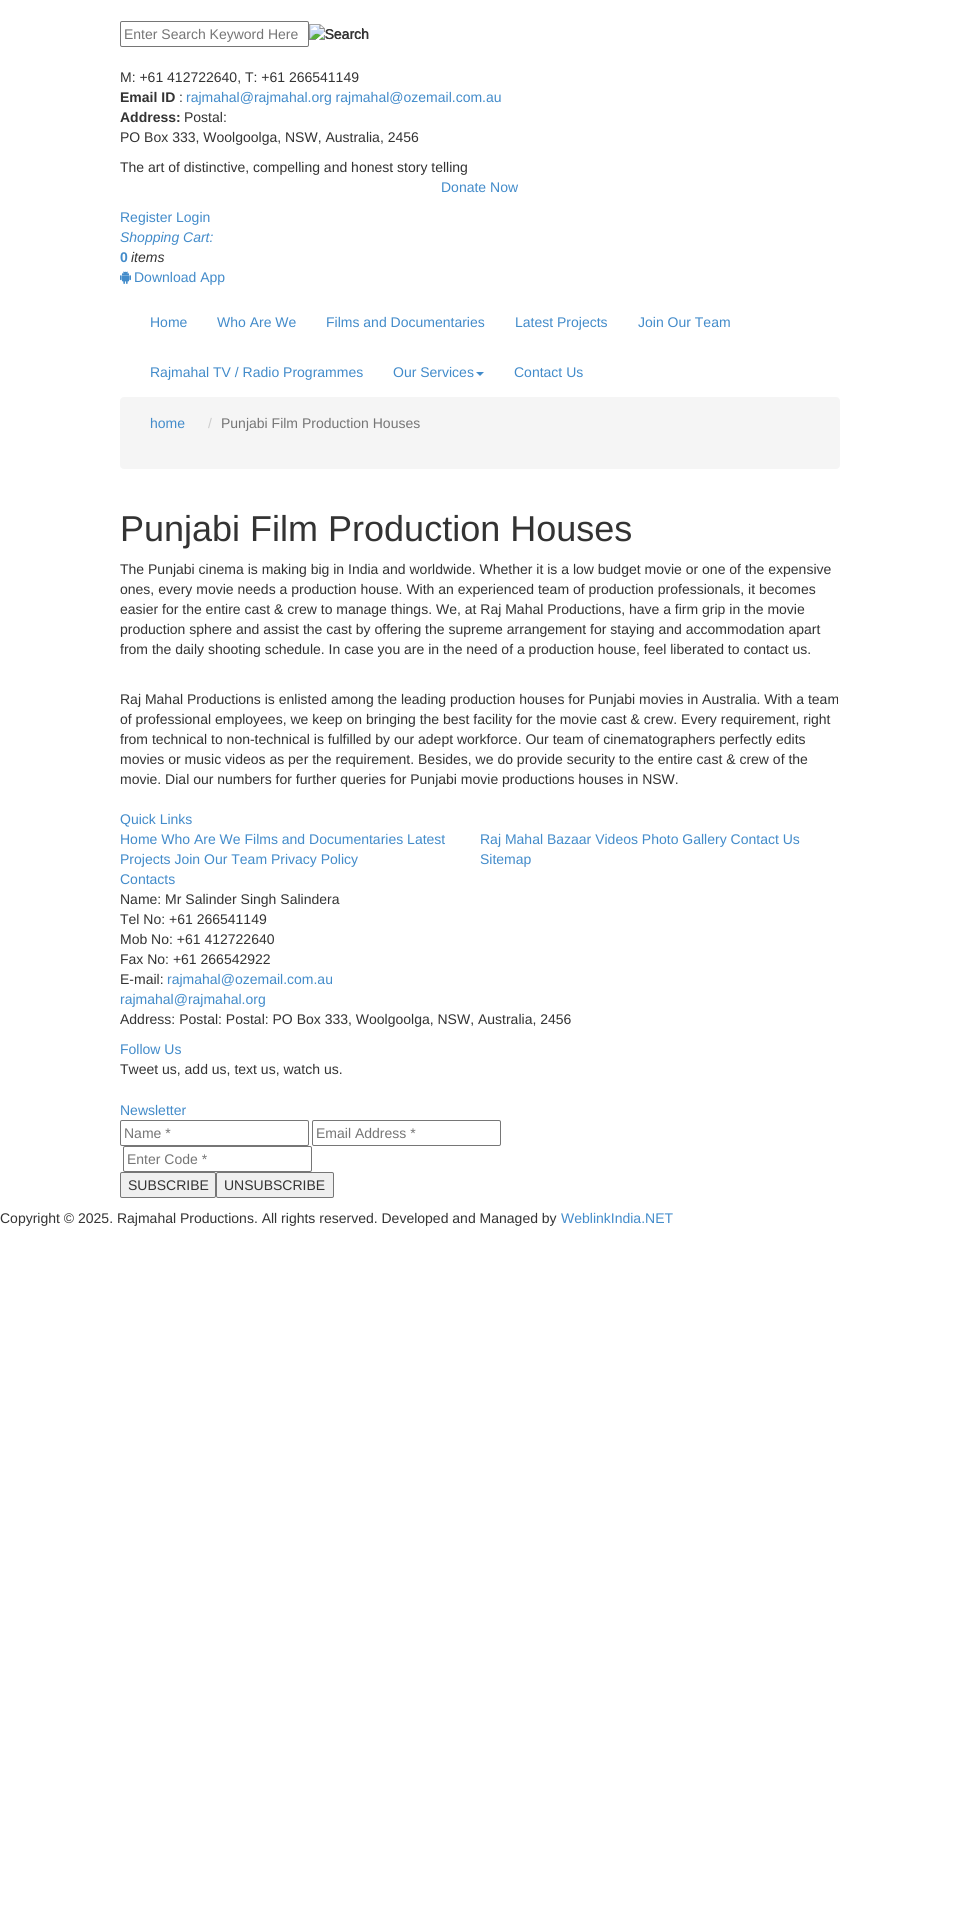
#include <cairo/cairo.h>
#include <math.h>
#include <stddef.h>

typedef struct { double x, y; const char *s; } line_t;
static cairo_t *cr;

static void rgb(unsigned color)
{
	cairo_set_source_rgb(cr, (color >> 16) / 255.0, (color >> 8 & 255) / 255.0, (color & 255) / 255.0);
}

static void rrect(double x, double y, double w, double h, double r)
{
	cairo_new_sub_path(cr);
	cairo_arc(cr, x + w - r, y + h - r, r, 0, M_PI / 2);
	cairo_arc(cr, x + r, y + h - r, r, M_PI / 2, M_PI);
	cairo_arc(cr, x + r, y + r, r, M_PI, 1.5 * M_PI);
	cairo_arc(cr, x + w - r, y + r, r, 1.5 * M_PI, 2 * M_PI);
	cairo_close_path(cr);
}

static void image(const char *path, double x, double y, double w, double h)
{
	cairo_surface_t *image = cairo_image_surface_create_from_png(path);
	cairo_save(cr);
	cairo_set_source_surface(cr, image, x, y);
	cairo_rectangle(cr, x, y, w, h);
	cairo_fill(cr);
	cairo_restore(cr);
	cairo_surface_destroy(image);
}

int main(void) {
	cairo_surface_t *surface = cairo_image_surface_create(CAIRO_FORMAT_RGB24, 959, 1927);
	cr = cairo_create(surface);
	cairo_font_options_t *options = cairo_font_options_create();
	cairo_font_options_set_hint_metrics(options, CAIRO_HINT_METRICS_OFF);
	cairo_font_options_set_hint_style(options, CAIRO_HINT_STYLE_NONE);
	cairo_set_font_options(cr, options);
	cairo_set_miter_limit(cr, 4);
	rgb(0xffffff);
	cairo_paint(cr);
	rrect(120.5, 21.5, 188, 25, 1.5);
	rgb(0x767676);
	cairo_set_line_width(cr, 1);
	cairo_stroke(cr);
	image("img/1.png", 309, 24, 59, 16);
	image("img/2.png", 120, 271, 11, 13);
	rgb(0x428bca);
	cairo_new_path(cr);
	cairo_move_to(cr, 476, 372);
	cairo_line_to(cr, 484, 372);
	cairo_line_to(cr, 480, 376);
	cairo_close_path(cr);
	cairo_fill(cr);
	rgb(0xf5f5f5);
	rrect(120, 397, 720, 72, 4);
	cairo_fill(cr);
	rrect(120.5, 1120.5, 188, 25, 1.5);
	rgb(0x767676);
	cairo_stroke(cr);
	rrect(312.5, 1120.5, 188, 25, 1.5);
	cairo_stroke(cr);
	rrect(123.5, 1146.5, 188, 25, 1.5);
	cairo_stroke(cr);
	rgb(0xefefef);
	rrect(120.5, 1172.5, 95, 25, 1.5);
	cairo_fill_preserve(cr);
	rgb(0x767676);
	cairo_stroke(cr);
	rgb(0xefefef);
	rrect(216.5, 1172.5, 117, 25, 1.5);
	cairo_fill_preserve(cr);
	rgb(0x767676);
	cairo_stroke(cr);
	cairo_select_font_face(cr, "Liberation Sans", CAIRO_FONT_SLANT_NORMAL, CAIRO_FONT_WEIGHT_NORMAL);
	cairo_set_font_size(cr, 14);
	rgb(0x757575);
	cairo_move_to(cr, 124, 39);
	cairo_show_text(cr, "Enter Search Keyword Here");
	rgb(0x333333);
	cairo_move_to(cr, 325, 39);
	cairo_show_text(cr, "Search");
	cairo_move_to(cr, 120, 82);
	cairo_show_text(cr, "M: +61 412722640, T: +61 266541149");
	cairo_select_font_face(cr, "Liberation Sans", CAIRO_FONT_SLANT_NORMAL, CAIRO_FONT_WEIGHT_BOLD);
	cairo_move_to(cr, 120, 102);
	cairo_show_text(cr, "Email ID");
	cairo_select_font_face(cr, "Liberation Sans", CAIRO_FONT_SLANT_NORMAL, CAIRO_FONT_WEIGHT_NORMAL);
	cairo_move_to(cr, 179, 102);
	cairo_show_text(cr, ":");
	rgb(0x428bca);
	cairo_move_to(cr, 186, 102);
	cairo_show_text(cr, "rajmahal@rajmahal.org rajmahal@ozemail.com.au");
	cairo_select_font_face(cr, "Liberation Sans", CAIRO_FONT_SLANT_NORMAL, CAIRO_FONT_WEIGHT_BOLD);
	rgb(0x333333);
	cairo_move_to(cr, 120, 122);
	cairo_show_text(cr, "Address:");
	cairo_select_font_face(cr, "Liberation Sans", CAIRO_FONT_SLANT_NORMAL, CAIRO_FONT_WEIGHT_NORMAL);
	{
		static const line_t items[] = {
			{184, 122, "Postal:"},
			{120, 142, "PO Box 333, Woolgoolga, NSW, Australia, 2456"},
			{120, 172, "The art of distinctive, compelling and honest story telling"},
		};
		for (size_t i = 0; i < sizeof items / sizeof *items; i++) {
			cairo_move_to(cr, items[i].x, items[i].y);
			cairo_show_text(cr, items[i].s);
		}
	}
	rgb(0x428bca);
	cairo_move_to(cr, 441, 192);
	cairo_show_text(cr, "Donate Now");
	cairo_move_to(cr, 120, 222);
	cairo_show_text(cr, "Register Login");
	cairo_select_font_face(cr, "Liberation Sans", CAIRO_FONT_SLANT_ITALIC, CAIRO_FONT_WEIGHT_NORMAL);
	cairo_move_to(cr, 120, 242);
	cairo_show_text(cr, "Shopping Cart:");
	cairo_select_font_face(cr, "Liberation Sans", CAIRO_FONT_SLANT_NORMAL, CAIRO_FONT_WEIGHT_BOLD);
	cairo_move_to(cr, 120, 262);
	cairo_show_text(cr, "0");
	cairo_select_font_face(cr, "Liberation Sans", CAIRO_FONT_SLANT_ITALIC, CAIRO_FONT_WEIGHT_NORMAL);
	rgb(0x333333);
	cairo_move_to(cr, 131, 262);
	cairo_show_text(cr, "items");
	cairo_select_font_face(cr, "Liberation Sans", CAIRO_FONT_SLANT_NORMAL, CAIRO_FONT_WEIGHT_NORMAL);
	rgb(0x428bca);
	{
		static const line_t items[] = {
			{134, 282, "Download App"},
			{150, 327, "Home"},
			{217, 327, "Who Are We"},
			{326, 327, "Films and Documentaries"},
			{515, 327, "Latest Projects"},
			{638, 327, "Join Our Team"},
			{150, 377, "Rajmahal TV / Radio Programmes"},
			{393, 377, "Our Services"},
			{514, 377, "Contact Us"},
			{150, 428, "home"},
		};
		for (size_t i = 0; i < sizeof items / sizeof *items; i++) {
			cairo_move_to(cr, items[i].x, items[i].y);
			cairo_show_text(cr, items[i].s);
		}
	}
	rgb(0xcccccc);
	cairo_move_to(cr, 208, 428);
	cairo_show_text(cr, "/");
	rgb(0x757575);
	cairo_move_to(cr, 221, 428);
	cairo_show_text(cr, "Punjabi Film Production Houses");
	cairo_set_font_size(cr, 36);
	rgb(0x333333);
	cairo_move_to(cr, 120, 541);
	cairo_show_text(cr, "Punjabi Film Production Houses");
	cairo_set_font_size(cr, 14);
	{
		static const line_t items[] = {
			{120, 574, "The Punjabi cinema is making big in India and worldwide. Whether it is a low budget movie or one of the expensive"},
			{120, 594, "ones, every movie needs a production house. With an experienced team of production professionals, it becomes"},
			{120, 614, "easier for the entire cast & crew to manage things. We, at Raj Mahal Productions, have a firm grip in the movie"},
			{120, 634, "production sphere and assist the cast by offering the supreme arrangement for staying and accommodation apart"},
			{120, 654, "from the daily shooting schedule. In case you are in the need of a production house, feel liberated to contact us."},
			{120, 704, "Raj Mahal Productions is enlisted among the leading production houses for Punjabi movies in Australia. With a team"},
			{120, 724, "of professional employees, we keep on bringing the best facility for the movie cast & crew. Every requirement, right"},
			{120, 744, "from technical to non-technical is fulfilled by our adept workforce. Our team of cinematographers perfectly edits"},
			{120, 764, "movies or music videos as per the requirement. Besides, we do provide security to the entire cast & crew of the"},
			{120, 784, "movie. Dial our numbers for further queries for Punjabi movie productions houses in NSW."},
		};
		for (size_t i = 0; i < sizeof items / sizeof *items; i++) {
			cairo_move_to(cr, items[i].x, items[i].y);
			cairo_show_text(cr, items[i].s);
		}
	}
	rgb(0x428bca);
	{
		static const line_t items[] = {
			{120, 824, "Quick Links"},
			{120, 844, "Home Who Are We Films and Documentaries Latest"},
			{120, 864, "Projects Join Our Team Privacy Policy"},
			{480, 844, "Raj Mahal Bazaar Videos Photo Gallery Contact Us"},
			{480, 864, "Sitemap"},
			{120, 884, "Contacts"},
		};
		for (size_t i = 0; i < sizeof items / sizeof *items; i++) {
			cairo_move_to(cr, items[i].x, items[i].y);
			cairo_show_text(cr, items[i].s);
		}
	}
	rgb(0x333333);
	{
		static const line_t items[] = {
			{120, 904, "Name: Mr Salinder Singh Salindera"},
			{120, 924, "Tel No: +61 266541149"},
			{120, 944, "Mob No: +61 412722640"},
			{120, 964, "Fax No: +61 266542922"},
			{120, 984, "E-mail:"},
		};
		for (size_t i = 0; i < sizeof items / sizeof *items; i++) {
			cairo_move_to(cr, items[i].x, items[i].y);
			cairo_show_text(cr, items[i].s);
		}
	}
	rgb(0x428bca);
	cairo_move_to(cr, 167, 984);
	cairo_show_text(cr, "rajmahal@ozemail.com.au");
	cairo_move_to(cr, 120, 1004);
	cairo_show_text(cr, "rajmahal@rajmahal.org");
	rgb(0x333333);
	cairo_move_to(cr, 120, 1024);
	cairo_show_text(cr, "Address: Postal: Postal: PO Box 333, Woolgoolga, NSW, Australia, 2456");
	rgb(0x428bca);
	cairo_move_to(cr, 120, 1054);
	cairo_show_text(cr, "Follow Us");
	rgb(0x333333);
	cairo_move_to(cr, 120, 1074);
	cairo_show_text(cr, "Tweet us, add us, text us, watch us.");
	rgb(0x428bca);
	cairo_move_to(cr, 120, 1115);
	cairo_show_text(cr, "Newsletter");
	rgb(0x757575);
	{
		static const line_t items[] = {
			{124, 1138, "Name *"},
			{316, 1138, "Email Address *"},
			{127, 1164, "Enter Code *"},
		};
		for (size_t i = 0; i < sizeof items / sizeof *items; i++) {
			cairo_move_to(cr, items[i].x, items[i].y);
			cairo_show_text(cr, items[i].s);
		}
	}
	rgb(0x333333);
	{
		static const line_t items[] = {
			{128, 1190, "SUBSCRIBE"},
			{224, 1190, "UNSUBSCRIBE"},
			{0, 1223, "Copyright © 2025. Rajmahal Productions. All rights reserved. Developed and Managed by"},
		};
		for (size_t i = 0; i < sizeof items / sizeof *items; i++) {
			cairo_move_to(cr, items[i].x, items[i].y);
			cairo_show_text(cr, items[i].s);
		}
	}
	rgb(0x428bca);
	cairo_move_to(cr, 561, 1223);
	cairo_show_text(cr, "WeblinkIndia.NET");
	cairo_surface_write_to_png(surface, "page.png");
	cairo_font_options_destroy(options);
	cairo_destroy(cr);
	cairo_surface_destroy(surface);
	return 0;
}
